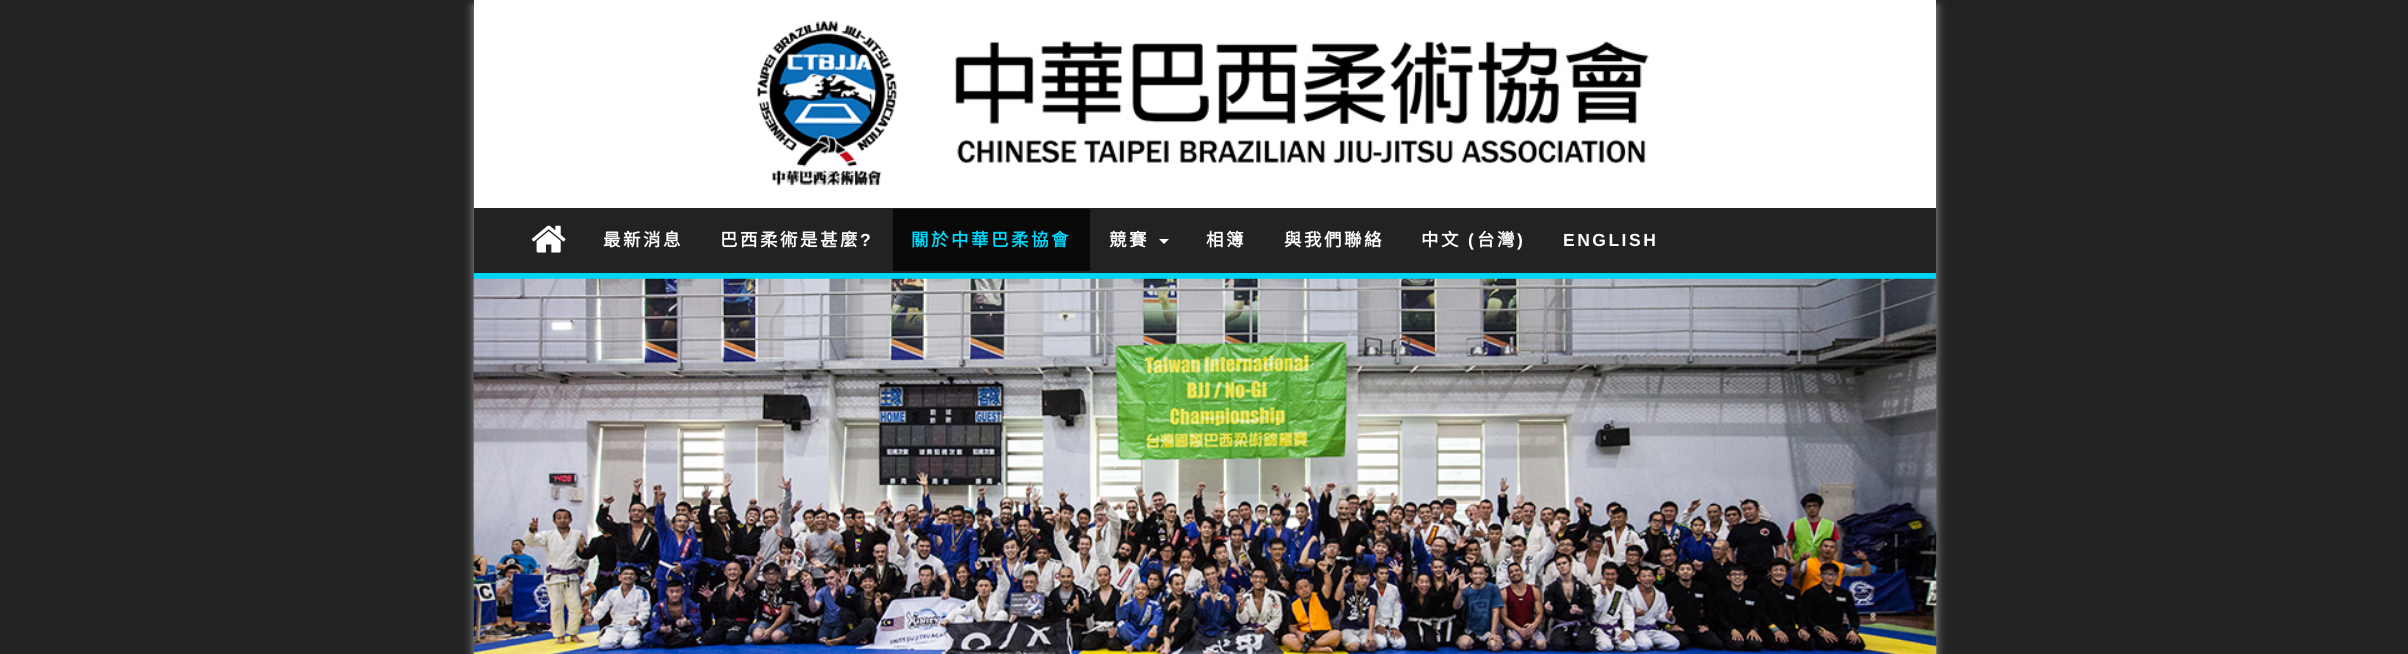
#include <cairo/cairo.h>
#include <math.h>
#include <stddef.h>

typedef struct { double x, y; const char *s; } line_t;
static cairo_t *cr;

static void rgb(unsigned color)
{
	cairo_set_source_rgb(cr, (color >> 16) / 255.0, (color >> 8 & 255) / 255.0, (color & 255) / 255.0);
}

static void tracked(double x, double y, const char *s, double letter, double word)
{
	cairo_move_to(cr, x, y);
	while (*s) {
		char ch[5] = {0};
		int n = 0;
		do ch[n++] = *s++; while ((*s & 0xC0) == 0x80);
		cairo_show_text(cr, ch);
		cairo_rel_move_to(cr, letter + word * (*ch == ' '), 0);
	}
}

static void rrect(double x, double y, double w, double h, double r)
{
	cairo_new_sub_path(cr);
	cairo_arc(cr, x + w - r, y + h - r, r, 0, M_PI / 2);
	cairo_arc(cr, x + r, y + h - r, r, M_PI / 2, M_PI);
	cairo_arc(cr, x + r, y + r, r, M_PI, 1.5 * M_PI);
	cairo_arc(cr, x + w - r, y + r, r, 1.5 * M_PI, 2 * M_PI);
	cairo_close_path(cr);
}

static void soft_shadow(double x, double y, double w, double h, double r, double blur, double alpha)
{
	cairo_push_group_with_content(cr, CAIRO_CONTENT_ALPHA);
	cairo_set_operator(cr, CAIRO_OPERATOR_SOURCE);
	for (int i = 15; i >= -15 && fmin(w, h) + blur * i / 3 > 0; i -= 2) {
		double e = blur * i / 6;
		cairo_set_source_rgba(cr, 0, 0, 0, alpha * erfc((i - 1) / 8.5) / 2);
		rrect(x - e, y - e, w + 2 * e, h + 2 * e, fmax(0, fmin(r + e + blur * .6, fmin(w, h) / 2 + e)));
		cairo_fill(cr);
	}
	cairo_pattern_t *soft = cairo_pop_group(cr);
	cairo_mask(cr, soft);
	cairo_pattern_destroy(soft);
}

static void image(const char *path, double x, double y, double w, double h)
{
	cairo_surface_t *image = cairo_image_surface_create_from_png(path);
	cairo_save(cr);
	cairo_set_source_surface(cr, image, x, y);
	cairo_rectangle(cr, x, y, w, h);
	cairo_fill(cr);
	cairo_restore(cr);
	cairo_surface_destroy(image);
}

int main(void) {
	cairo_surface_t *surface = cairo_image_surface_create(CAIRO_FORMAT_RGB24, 2408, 654);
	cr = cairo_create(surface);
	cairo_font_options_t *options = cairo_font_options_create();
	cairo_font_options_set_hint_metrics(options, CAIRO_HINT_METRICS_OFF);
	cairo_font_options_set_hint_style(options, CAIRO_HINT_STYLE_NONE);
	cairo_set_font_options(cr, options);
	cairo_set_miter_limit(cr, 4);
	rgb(0x222222);
	cairo_paint(cr);
	cairo_save(cr);
	cairo_set_fill_rule(cr, CAIRO_FILL_RULE_EVEN_ODD);
	cairo_new_path(cr);
	cairo_move_to(cr, 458, 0);
	cairo_line_to(cr, 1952, 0);
	cairo_line_to(cr, 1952, 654);
	cairo_line_to(cr, 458, 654);
	cairo_close_path(cr);
	cairo_move_to(cr, 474, 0);
	cairo_line_to(cr, 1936, 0);
	cairo_line_to(cr, 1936, 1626);
	cairo_line_to(cr, 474, 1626);
	cairo_close_path(cr);
	cairo_clip(cr);
	rgb(0xa1a1a1);
	soft_shadow(474, 6, 1462, 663, 0, 5, 1);
	cairo_restore(cr);
	rgb(0xffffff);
	cairo_rectangle(cr, 474, 0, 1462, 208);
	cairo_fill(cr);
	image("img/1.png", 757, 21, 892, 165);
	rgb(0x00d6f7);
	cairo_rectangle(cr, 474, 273, 1462, 6);
	cairo_fill(cr);
	image("img/2.png", 531, 225, 35, 28);
	rgb(0x080808);
	cairo_rectangle(cr, 893, 209, 197, 62);
	cairo_fill(cr);
	rgb(0xffffff);
	cairo_new_path(cr);
	cairo_move_to(cr, 1159, 239);
	cairo_line_to(cr, 1169, 239);
	cairo_line_to(cr, 1164, 244);
	cairo_close_path(cr);
	cairo_fill(cr);
	image("img/3.png", 473, 278, 1464, 376);
	cairo_select_font_face(cr, "Noto Sans CJK TC", CAIRO_FONT_SLANT_NORMAL, CAIRO_FONT_WEIGHT_BOLD);
	cairo_set_font_size(cr, 17.5);
	tracked(603, 246, "最新消息", 2.5, 0);
	tracked(720, 246, "巴西柔術是甚麼", 2.5, 0);
	cairo_select_font_face(cr, "Liberation Sans", CAIRO_FONT_SLANT_NORMAL, CAIRO_FONT_WEIGHT_BOLD);
	tracked(860, 246, "?", 2.5, 0);
	cairo_select_font_face(cr, "Noto Sans CJK TC", CAIRO_FONT_SLANT_NORMAL, CAIRO_FONT_WEIGHT_BOLD);
	rgb(0x00d6f7);
	tracked(911, 246, "關於中華巴柔協會", 2.5, 0);
	rgb(0xffffff);
	{
		static const line_t items[] = {
			{1109, 246, "競賽"},
			{1206, 246, "相簿"},
			{1284, 246, "與我們聯絡"},
			{1421, 246, "中文"},
		};
		for (size_t i = 0; i < sizeof items / sizeof *items; i++) {
			tracked(items[i].x, items[i].y, items[i].s, 2.5, 0);
		}
	}
	cairo_select_font_face(cr, "Liberation Sans", CAIRO_FONT_SLANT_NORMAL, CAIRO_FONT_WEIGHT_BOLD);
	tracked(1468, 246, "(", 2.5, 0);
	cairo_select_font_face(cr, "Noto Sans CJK TC", CAIRO_FONT_SLANT_NORMAL, CAIRO_FONT_WEIGHT_BOLD);
	tracked(1477, 246, "台灣", 2.5, 0);
	cairo_select_font_face(cr, "Liberation Sans", CAIRO_FONT_SLANT_NORMAL, CAIRO_FONT_WEIGHT_BOLD);
	tracked(1517, 246, ")", 2.5, 0);
	tracked(1563, 246, "ENGLISH", 2.5, 0);
	cairo_surface_write_to_png(surface, "page.png");
	cairo_font_options_destroy(options);
	cairo_destroy(cr);
	cairo_surface_destroy(surface);
	return 0;
}
